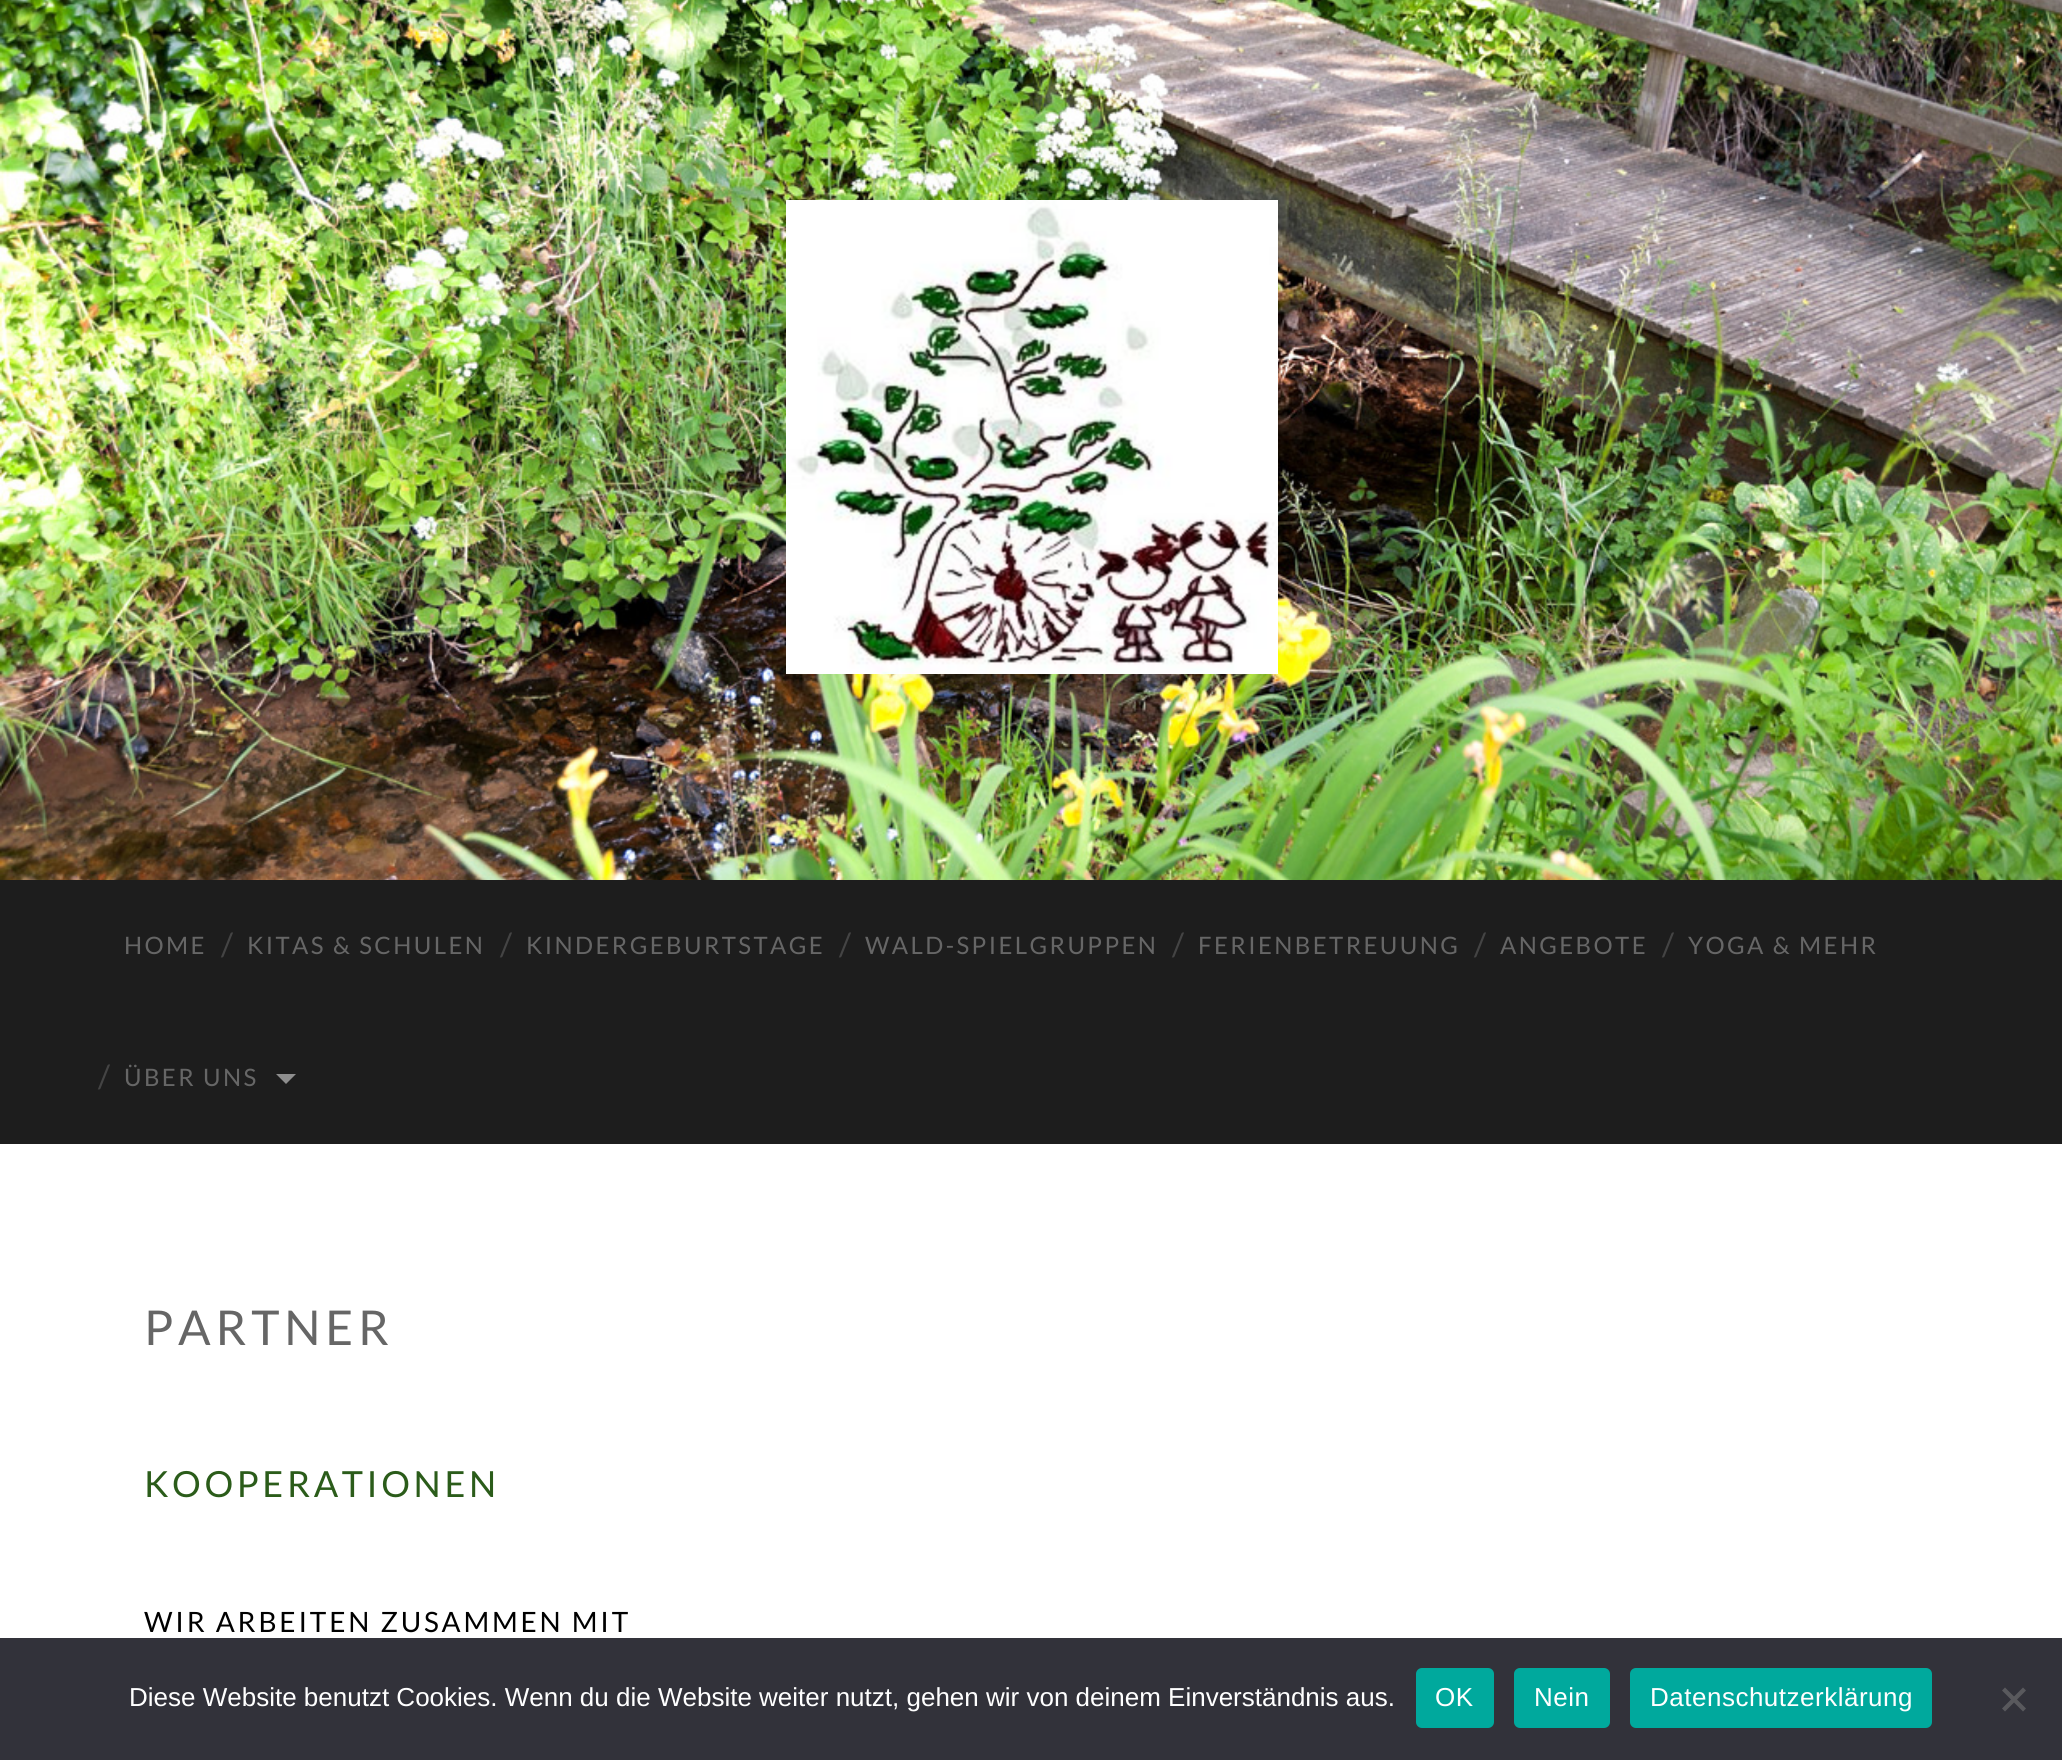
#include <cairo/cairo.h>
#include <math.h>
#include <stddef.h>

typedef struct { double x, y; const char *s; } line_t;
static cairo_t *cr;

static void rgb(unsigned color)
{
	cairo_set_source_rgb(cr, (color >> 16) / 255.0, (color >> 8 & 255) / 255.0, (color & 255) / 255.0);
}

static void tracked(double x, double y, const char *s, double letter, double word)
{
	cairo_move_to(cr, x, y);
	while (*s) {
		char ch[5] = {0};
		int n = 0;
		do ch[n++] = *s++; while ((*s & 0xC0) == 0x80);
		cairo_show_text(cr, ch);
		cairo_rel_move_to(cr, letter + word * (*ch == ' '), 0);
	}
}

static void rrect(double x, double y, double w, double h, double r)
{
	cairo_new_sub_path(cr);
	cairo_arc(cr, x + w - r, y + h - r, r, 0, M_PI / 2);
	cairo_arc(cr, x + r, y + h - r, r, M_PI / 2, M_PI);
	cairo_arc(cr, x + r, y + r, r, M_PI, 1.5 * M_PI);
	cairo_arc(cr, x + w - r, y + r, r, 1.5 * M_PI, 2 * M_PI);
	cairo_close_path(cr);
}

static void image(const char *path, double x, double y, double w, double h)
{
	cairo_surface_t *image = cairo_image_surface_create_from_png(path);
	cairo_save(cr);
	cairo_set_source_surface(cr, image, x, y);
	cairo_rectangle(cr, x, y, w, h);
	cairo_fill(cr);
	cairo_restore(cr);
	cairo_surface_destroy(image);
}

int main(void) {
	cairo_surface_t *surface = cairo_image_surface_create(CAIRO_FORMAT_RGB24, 2062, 1760);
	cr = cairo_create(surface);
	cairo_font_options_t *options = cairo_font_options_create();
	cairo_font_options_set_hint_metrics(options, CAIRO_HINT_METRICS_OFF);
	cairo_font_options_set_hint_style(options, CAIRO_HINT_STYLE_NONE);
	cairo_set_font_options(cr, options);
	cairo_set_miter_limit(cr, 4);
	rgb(0xffffff);
	cairo_paint(cr);
	image("img/1.png", 0, 0, 2062, 880);
	image("img/2.png", 786, 200, 492, 474);
	rgb(0x1d1d1d);
	cairo_rectangle(cr, 0, 880, 2062, 264);
	cairo_fill(cr);
	rgb(0x8e8e8e);
	cairo_new_path(cr);
	cairo_move_to(cr, 276, 1074);
	cairo_line_to(cr, 296, 1074);
	cairo_line_to(cr, 286, 1084);
	cairo_close_path(cr);
	cairo_fill(cr);
	rgb(0x32323a);
	cairo_rectangle(cr, 0, 1638, 2062, 122);
	cairo_fill(cr);
	rgb(0x00a99d);
	rrect(1416, 1668, 78, 60, 6);
	cairo_fill(cr);
	rrect(1514, 1668, 96, 60, 6);
	cairo_fill(cr);
	rrect(1630, 1668, 302, 60, 6);
	cairo_fill(cr);
	rgb(0x59595d);
	cairo_new_path(cr);
	cairo_move_to(cr, 2023, 1687.5);
	cairo_line_to(cr, 2026, 1690.5);
	cairo_line_to(cr, 2005, 1711.5);
	cairo_line_to(cr, 2002, 1708.5);
	cairo_close_path(cr);
	cairo_fill(cr);
	cairo_new_path(cr);
	cairo_move_to(cr, 2002, 1690.5);
	cairo_line_to(cr, 2005, 1687.5);
	cairo_line_to(cr, 2026, 1708.5);
	cairo_line_to(cr, 2023, 1711.5);
	cairo_close_path(cr);
	cairo_fill(cr);
	cairo_select_font_face(cr, "Lato", CAIRO_FONT_SLANT_NORMAL, CAIRO_FONT_WEIGHT_NORMAL);
	cairo_set_font_size(cr, 24);
	rgb(0x666666);
	tracked(124, 954, "HOME", 2.4, 0);
	cairo_set_font_size(cr, 32);
	rgb(0x444444);
	cairo_move_to(cr, 221, 956);
	cairo_show_text(cr, "/");
	cairo_set_font_size(cr, 24);
	rgb(0x666666);
	tracked(247, 954, "KITAS & SCHULEN", 2.4, 0);
	cairo_set_font_size(cr, 32);
	rgb(0x444444);
	cairo_move_to(cr, 500, 956);
	cairo_show_text(cr, "/");
	cairo_set_font_size(cr, 24);
	rgb(0x666666);
	tracked(526, 954, "KINDERGEBURTSTAGE", 2.4, 0);
	cairo_set_font_size(cr, 32);
	rgb(0x444444);
	cairo_move_to(cr, 839, 956);
	cairo_show_text(cr, "/");
	cairo_set_font_size(cr, 24);
	rgb(0x666666);
	tracked(865, 954, "WALD-SPIELGRUPPEN", 2.4, 0);
	cairo_set_font_size(cr, 32);
	rgb(0x444444);
	cairo_move_to(cr, 1172, 956);
	cairo_show_text(cr, "/");
	cairo_set_font_size(cr, 24);
	rgb(0x666666);
	tracked(1198, 954, "FERIENBETREUUNG", 2.4, 0);
	cairo_set_font_size(cr, 32);
	rgb(0x444444);
	cairo_move_to(cr, 1474, 956);
	cairo_show_text(cr, "/");
	cairo_set_font_size(cr, 24);
	rgb(0x666666);
	tracked(1500, 954, "ANGEBOTE", 2.4, 0);
	cairo_set_font_size(cr, 32);
	rgb(0x444444);
	cairo_move_to(cr, 1662, 956);
	cairo_show_text(cr, "/");
	cairo_set_font_size(cr, 24);
	rgb(0x666666);
	tracked(1688, 954, "YOGA & MEHR", 2.4, 0);
	cairo_set_font_size(cr, 32);
	rgb(0x444444);
	cairo_move_to(cr, 98, 1088);
	cairo_show_text(cr, "/");
	cairo_set_font_size(cr, 24);
	rgb(0x666666);
	tracked(124, 1086, "ÜBER UNS", 2.4, 0);
	cairo_set_font_size(cr, 48);
	tracked(144, 1345, "PARTNER", 4.75, 0);
	cairo_set_font_size(cr, 36);
	rgb(0x2b5c1a);
	tracked(144, 1497, "KOOPERATIONEN", 3.6, 0);
	cairo_set_font_size(cr, 28);
	rgb(0x000000);
	tracked(144, 1632, "WIR ARBEITEN ZUSAMMEN MIT", 2.8, 0);
	cairo_select_font_face(cr, "Liberation Sans", CAIRO_FONT_SLANT_NORMAL, CAIRO_FONT_WEIGHT_NORMAL);
	cairo_set_font_size(cr, 26);
	rgb(0xffffff);
	cairo_move_to(cr, 129, 1706);
	cairo_show_text(cr, "Diese Website benutzt Cookies. Wenn du die Website weiter nutzt, gehen wir von deinem Einverständnis aus.");
	{
		static const line_t items[] = {
			{1435, 1706, "OK"},
			{1534, 1706, "Nein"},
			{1650, 1706, "Datenschutzerklärung"},
		};
		for (size_t i = 0; i < sizeof items / sizeof *items; i++) {
			tracked(items[i].x, items[i].y, items[i].s, 0.5, 0);
		}
	}
	cairo_surface_write_to_png(surface, "page.png");
	cairo_font_options_destroy(options);
	cairo_destroy(cr);
	cairo_surface_destroy(surface);
	return 0;
}
